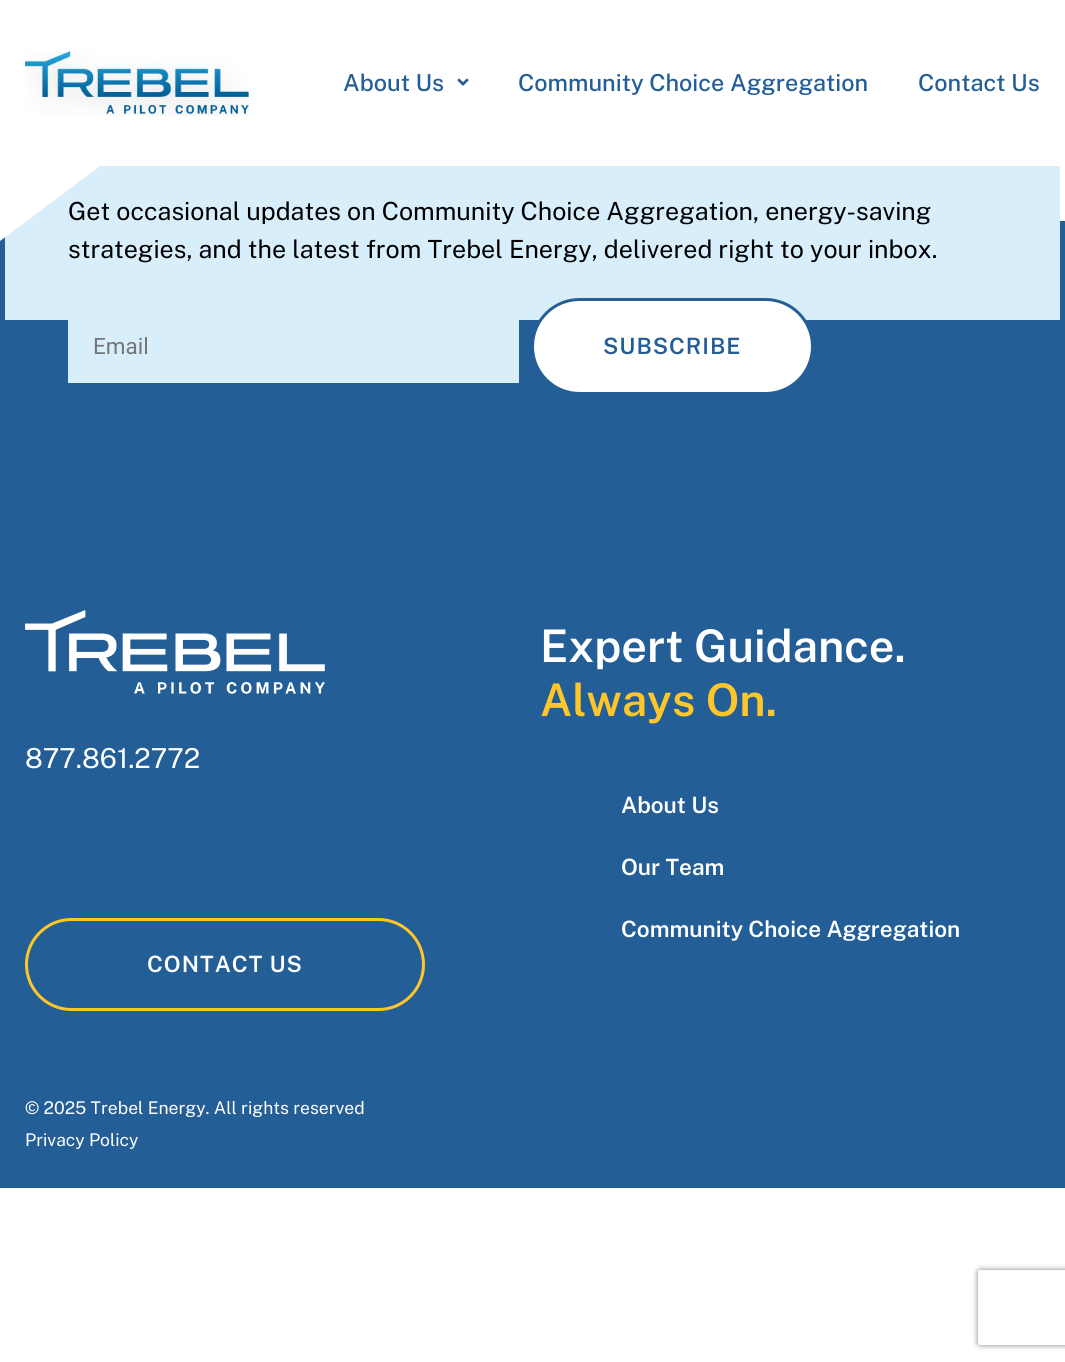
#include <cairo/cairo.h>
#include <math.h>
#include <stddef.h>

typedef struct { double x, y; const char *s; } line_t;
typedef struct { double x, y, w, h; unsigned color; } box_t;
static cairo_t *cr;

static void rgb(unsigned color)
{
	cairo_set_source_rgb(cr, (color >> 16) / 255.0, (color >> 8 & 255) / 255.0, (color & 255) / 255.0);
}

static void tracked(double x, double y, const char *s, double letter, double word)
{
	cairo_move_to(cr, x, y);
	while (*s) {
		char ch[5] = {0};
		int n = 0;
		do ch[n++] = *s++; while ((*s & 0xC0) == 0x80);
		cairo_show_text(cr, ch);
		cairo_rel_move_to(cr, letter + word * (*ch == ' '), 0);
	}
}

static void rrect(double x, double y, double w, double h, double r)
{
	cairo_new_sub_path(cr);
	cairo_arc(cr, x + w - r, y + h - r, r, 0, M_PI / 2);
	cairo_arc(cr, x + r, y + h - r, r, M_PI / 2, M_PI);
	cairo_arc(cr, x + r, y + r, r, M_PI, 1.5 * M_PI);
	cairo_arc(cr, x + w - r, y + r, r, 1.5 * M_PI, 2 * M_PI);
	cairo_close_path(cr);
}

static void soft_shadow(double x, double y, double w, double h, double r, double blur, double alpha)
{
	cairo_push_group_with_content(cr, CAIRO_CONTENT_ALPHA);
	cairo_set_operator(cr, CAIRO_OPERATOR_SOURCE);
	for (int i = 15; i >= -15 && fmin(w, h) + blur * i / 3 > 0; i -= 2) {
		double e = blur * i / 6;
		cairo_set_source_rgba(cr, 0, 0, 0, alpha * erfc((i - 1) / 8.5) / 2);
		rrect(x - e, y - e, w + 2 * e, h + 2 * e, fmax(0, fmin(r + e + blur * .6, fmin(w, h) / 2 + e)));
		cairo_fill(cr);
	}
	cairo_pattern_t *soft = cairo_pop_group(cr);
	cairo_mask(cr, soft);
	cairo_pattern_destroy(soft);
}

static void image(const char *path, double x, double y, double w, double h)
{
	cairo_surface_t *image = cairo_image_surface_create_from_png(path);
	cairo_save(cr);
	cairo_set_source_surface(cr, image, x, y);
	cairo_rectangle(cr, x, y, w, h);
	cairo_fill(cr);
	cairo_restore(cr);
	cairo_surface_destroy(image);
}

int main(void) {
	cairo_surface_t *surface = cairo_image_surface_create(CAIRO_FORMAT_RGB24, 1065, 1362);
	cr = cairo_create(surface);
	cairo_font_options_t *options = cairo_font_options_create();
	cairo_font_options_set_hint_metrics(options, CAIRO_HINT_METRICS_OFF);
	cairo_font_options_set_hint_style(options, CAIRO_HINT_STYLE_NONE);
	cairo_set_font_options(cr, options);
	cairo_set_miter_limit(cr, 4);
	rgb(0xffffff);
	cairo_paint(cr);
	image("img/1.png", 25, 51, 224, 65);
	image("img/2.png", 457, 78, 12, 8);
	{
		static const box_t items[] = {
			{0, 221, 1065, 967, 0x245e96},
			{5, 166, 1055, 154, 0xd8effb},
			{68, 320, 451, 63, 0xd8effb},
		};
		for (size_t i = 0; i < sizeof items / sizeof *items; i++) {
			rgb(items[i].color);
			cairo_rectangle(cr, items[i].x, items[i].y, items[i].w, items[i].h);
			cairo_fill(cr);
		}
	}
	rgb(0xffffff);
	rrect(532.5, 299.5, 280, 94, 47);
	cairo_fill_preserve(cr);
	rgb(0x245e96);
	cairo_set_line_width(cr, 3);
	cairo_stroke(cr);
	image("img/3.png", 25, 610, 300, 84);
	rrect(26.5, 919.5, 397, 90, 45);
	rgb(0xffc629);
	cairo_stroke(cr);
	cairo_save(cr);
	cairo_set_fill_rule(cr, CAIRO_FILL_RULE_EVEN_ODD);
	cairo_new_path(cr);
	cairo_move_to(cr, 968, 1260);
	cairo_line_to(cr, 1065, 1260);
	cairo_line_to(cr, 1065, 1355);
	cairo_line_to(cr, 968, 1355);
	cairo_close_path(cr);
	cairo_move_to(cr, 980.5, 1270);
	cairo_line_to(cr, 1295.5, 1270);
	cairo_curve_to(cr, 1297, 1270, 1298, 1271, 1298, 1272.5);
	cairo_line_to(cr, 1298, 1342.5);
	cairo_curve_to(cr, 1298, 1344, 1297, 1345, 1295.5, 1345);
	cairo_line_to(cr, 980.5, 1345);
	cairo_curve_to(cr, 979, 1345, 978, 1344, 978, 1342.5);
	cairo_line_to(cr, 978, 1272.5);
	cairo_curve_to(cr, 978, 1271, 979, 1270, 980.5, 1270);
	cairo_close_path(cr);
	cairo_clip(cr);
	rgb(0x808080);
	soft_shadow(978, 1270, 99, 75, 2.5, 3, 1);
	cairo_restore(cr);
	cairo_select_font_face(cr, "Public Sans Medium", CAIRO_FONT_SLANT_NORMAL, CAIRO_FONT_WEIGHT_NORMAL);
	cairo_set_font_size(cr, 23.4);
	rgb(0x245e96);
	{
		static const line_t items[] = {
			{343, 91, "About Us"},
			{518, 91, "Community Choice Aggregation"},
			{918, 91, "Contact Us"},
		};
		for (size_t i = 0; i < sizeof items / sizeof *items; i++) {
			cairo_move_to(cr, items[i].x, items[i].y);
			cairo_show_text(cr, items[i].s);
		}
	}
	cairo_select_font_face(cr, "Public Sans", CAIRO_FONT_SLANT_NORMAL, CAIRO_FONT_WEIGHT_NORMAL);
	cairo_set_font_size(cr, 25);
	rgb(0x000000);
	cairo_move_to(cr, 68, 220);
	cairo_show_text(cr, "Get occasional updates on Community Choice Aggregation, energy-saving");
	cairo_move_to(cr, 68, 258);
	cairo_show_text(cr, "strategies, and the latest from Trebel Energy, delivered right to your inbox.");
	rgb(0xffffff);
	cairo_new_path(cr);
	cairo_move_to(cr, 0, 241);
	cairo_line_to(cr, 0, 166);
	cairo_line_to(cr, 100, 166);
	cairo_close_path(cr);
	cairo_fill(cr);
	cairo_select_font_face(cr, "Roboto", CAIRO_FONT_SLANT_NORMAL, CAIRO_FONT_WEIGHT_NORMAL);
	cairo_set_font_size(cr, 22.5);
	rgb(0x757575);
	cairo_move_to(cr, 93, 354);
	cairo_show_text(cr, "Email");
	cairo_select_font_face(cr, "Public Sans SemiBold", CAIRO_FONT_SLANT_NORMAL, CAIRO_FONT_WEIGHT_NORMAL);
	rgb(0x245e96);
	tracked(603, 354, "SUBSCRIBE", 1, 0);
	cairo_select_font_face(cr, "Public Sans", CAIRO_FONT_SLANT_NORMAL, CAIRO_FONT_WEIGHT_NORMAL);
	cairo_set_font_size(cr, 27.5);
	rgb(0xffffff);
	cairo_move_to(cr, 25, 768);
	cairo_show_text(cr, "877.861.2772");
	cairo_select_font_face(cr, "Public Sans SemiBold", CAIRO_FONT_SLANT_NORMAL, CAIRO_FONT_WEIGHT_NORMAL);
	cairo_set_font_size(cr, 22.5);
	tracked(147, 972, "CONTACT US", 1, 0);
	cairo_set_font_size(cr, 45);
	cairo_move_to(cr, 540, 662);
	cairo_show_text(cr, "Expert Guidance.");
	rgb(0xffc629);
	cairo_move_to(cr, 540, 716);
	cairo_show_text(cr, "Always On.");
	cairo_set_font_size(cr, 22.5);
	rgb(0xffffff);
	{
		static const line_t items[] = {
			{621, 813, "About Us"},
			{621, 875, "Our Team"},
			{621, 937, "Community Choice Aggregation"},
		};
		for (size_t i = 0; i < sizeof items / sizeof *items; i++) {
			cairo_move_to(cr, items[i].x, items[i].y);
			cairo_show_text(cr, items[i].s);
		}
	}
	cairo_select_font_face(cr, "Public Sans", CAIRO_FONT_SLANT_NORMAL, CAIRO_FONT_WEIGHT_NORMAL);
	cairo_set_font_size(cr, 17.5);
	cairo_move_to(cr, 25, 1114);
	cairo_show_text(cr, "© 2025 Trebel Energy. All rights reserved");
	cairo_move_to(cr, 25, 1146);
	cairo_show_text(cr, "Privacy Policy");
	cairo_surface_write_to_png(surface, "page.png");
	cairo_font_options_destroy(options);
	cairo_destroy(cr);
	cairo_surface_destroy(surface);
	return 0;
}
